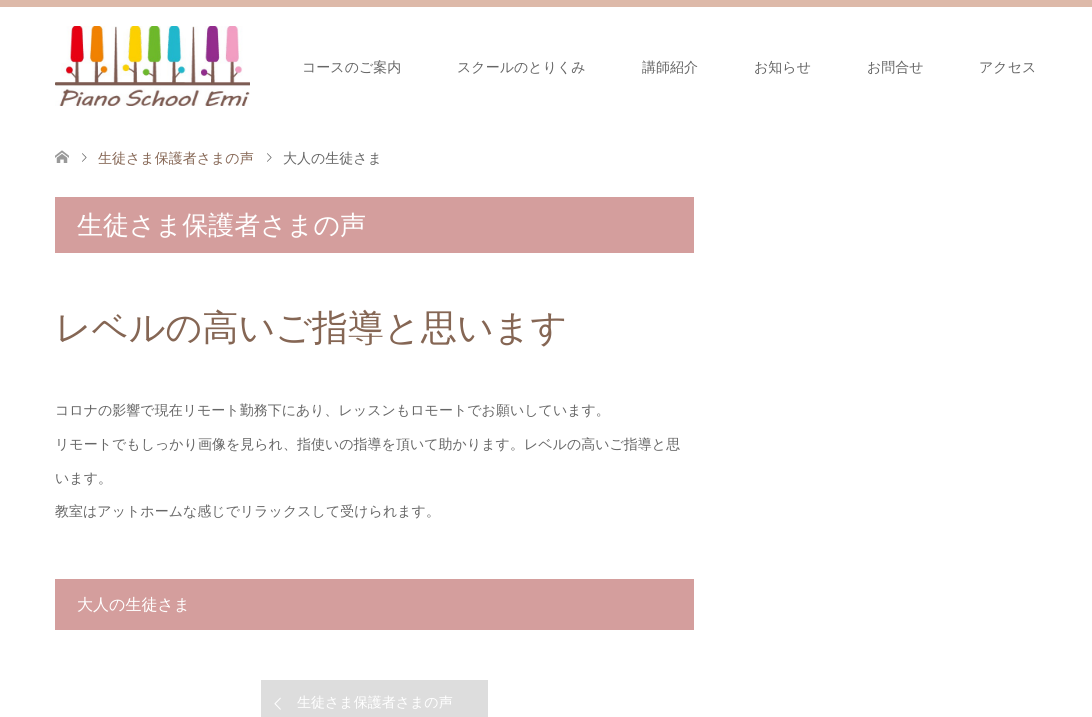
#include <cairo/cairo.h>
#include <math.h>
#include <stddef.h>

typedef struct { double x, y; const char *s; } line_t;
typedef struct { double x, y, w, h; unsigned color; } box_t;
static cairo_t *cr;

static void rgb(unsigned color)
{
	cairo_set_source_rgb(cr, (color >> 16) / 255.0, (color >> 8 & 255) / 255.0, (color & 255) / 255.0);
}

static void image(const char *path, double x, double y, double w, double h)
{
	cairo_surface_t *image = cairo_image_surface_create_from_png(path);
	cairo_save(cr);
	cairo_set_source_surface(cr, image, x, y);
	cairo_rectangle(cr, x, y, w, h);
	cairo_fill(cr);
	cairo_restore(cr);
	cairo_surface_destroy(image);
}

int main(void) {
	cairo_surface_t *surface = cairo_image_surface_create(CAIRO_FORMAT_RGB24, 1092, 717);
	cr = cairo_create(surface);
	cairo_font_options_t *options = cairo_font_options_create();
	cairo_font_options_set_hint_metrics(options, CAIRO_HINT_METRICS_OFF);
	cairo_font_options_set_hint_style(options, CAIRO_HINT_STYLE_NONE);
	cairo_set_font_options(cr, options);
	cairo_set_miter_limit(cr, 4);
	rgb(0xffffff);
	cairo_paint(cr);
	rgb(0xddb9a9);
	cairo_rectangle(cr, 0, 0, 1092, 7);
	cairo_fill(cr);
	image("img/1.png", 55, 26, 195, 80);
	image("img/2.png", 55, 150, 14, 13);
	image("img/3.png", 82, 153, 5, 9);
	image("img/3.png", 267, 153, 5, 9);
	{
		static const box_t items[] = {
			{55, 197, 639, 56, 0xd49e9d},
			{55, 579, 639, 51, 0xd49e9d},
			{261, 680, 227, 37, 0xdddddd},
		};
		for (size_t i = 0; i < sizeof items / sizeof *items; i++) {
			rgb(items[i].color);
			cairo_rectangle(cr, items[i].x, items[i].y, items[i].w, items[i].h);
			cairo_fill(cr);
		}
	}
	image("img/4.png", 274, 697, 7, 13);
	cairo_select_font_face(cr, "WenQuanYi Zen Hei Medium", CAIRO_FONT_SLANT_NORMAL, CAIRO_FONT_WEIGHT_NORMAL);
	cairo_set_font_size(cr, 14);
	rgb(0x666666);
	{
		static const line_t items[] = {
			{302, 72, "コースのご案内"},
			{457, 72, "スクールのとりくみ"},
			{642, 72, "講師紹介"},
			{754, 72, "お知らせ"},
			{867, 72, "お問合せ"},
			{979, 72, "アクセス"},
		};
		for (size_t i = 0; i < sizeof items / sizeof *items; i++) {
			cairo_move_to(cr, items[i].x, items[i].y);
			cairo_show_text(cr, items[i].s);
		}
	}
	rgb(0x856654);
	cairo_move_to(cr, 98, 163);
	cairo_show_text(cr, "生徒さま保護者さまの声");
	rgb(0x666666);
	cairo_move_to(cr, 283, 163);
	cairo_show_text(cr, "大人の生徒さま");
	cairo_set_font_size(cr, 26);
	rgb(0xffffff);
	cairo_move_to(cr, 77, 234);
	cairo_show_text(cr, "生徒さま保護者さまの声");
	cairo_set_font_size(cr, 36);
	rgb(0x856654);
	cairo_move_to(cr, 55, 340);
	cairo_show_text(cr, "レベルの高いご指導と思います");
	cairo_set_font_size(cr, 14);
	rgb(0x666666);
	{
		static const line_t items[] = {
			{55, 415, "コロナの影響で現在リモート勤務下にあり、レッスンもロモートでお願いしています。"},
			{55, 449, "リモートでもしっかり画像を見られ、指使いの指導を頂いて助かります。レベルの高いご指導と思"},
			{55, 483, "います。"},
			{55, 516, "教室はアットホームな感じでリラックスして受けられます。"},
		};
		for (size_t i = 0; i < sizeof items / sizeof *items; i++) {
			cairo_move_to(cr, items[i].x, items[i].y);
			cairo_show_text(cr, items[i].s);
		}
	}
	cairo_set_font_size(cr, 16);
	rgb(0xffffff);
	cairo_move_to(cr, 77, 610);
	cairo_show_text(cr, "大人の生徒さま");
	cairo_set_font_size(cr, 14);
	cairo_move_to(cr, 297, 707);
	cairo_show_text(cr, "生徒さま保護者さまの声");
	cairo_surface_write_to_png(surface, "page.png");
	cairo_font_options_destroy(options);
	cairo_destroy(cr);
	cairo_surface_destroy(surface);
	return 0;
}
